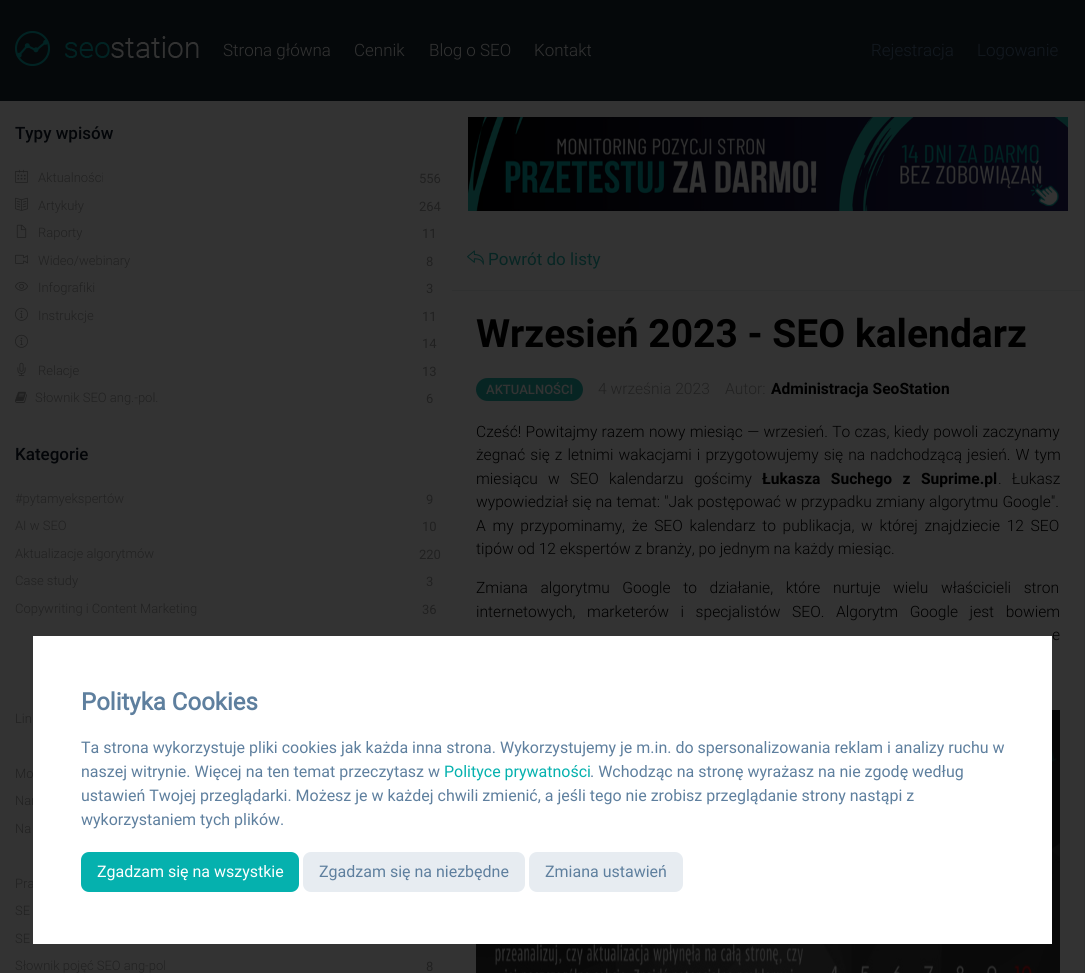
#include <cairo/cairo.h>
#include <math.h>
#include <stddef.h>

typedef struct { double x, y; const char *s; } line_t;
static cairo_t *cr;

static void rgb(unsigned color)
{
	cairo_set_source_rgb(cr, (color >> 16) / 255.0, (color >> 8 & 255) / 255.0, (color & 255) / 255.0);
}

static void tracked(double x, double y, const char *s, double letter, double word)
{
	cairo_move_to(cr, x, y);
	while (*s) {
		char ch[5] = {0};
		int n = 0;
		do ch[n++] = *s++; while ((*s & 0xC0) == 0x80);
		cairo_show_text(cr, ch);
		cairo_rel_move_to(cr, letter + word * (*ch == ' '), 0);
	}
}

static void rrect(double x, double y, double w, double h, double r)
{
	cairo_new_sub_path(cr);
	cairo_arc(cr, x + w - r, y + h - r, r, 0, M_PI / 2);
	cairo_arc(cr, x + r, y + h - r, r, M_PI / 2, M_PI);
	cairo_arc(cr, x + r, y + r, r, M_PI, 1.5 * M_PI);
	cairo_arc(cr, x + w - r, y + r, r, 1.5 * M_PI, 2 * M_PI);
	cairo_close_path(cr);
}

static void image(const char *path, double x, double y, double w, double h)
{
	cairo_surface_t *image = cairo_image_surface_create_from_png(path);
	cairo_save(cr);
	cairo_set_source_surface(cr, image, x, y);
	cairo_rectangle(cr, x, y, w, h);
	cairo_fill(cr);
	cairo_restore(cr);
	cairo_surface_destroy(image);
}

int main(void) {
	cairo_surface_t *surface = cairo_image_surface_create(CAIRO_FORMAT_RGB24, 1085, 973);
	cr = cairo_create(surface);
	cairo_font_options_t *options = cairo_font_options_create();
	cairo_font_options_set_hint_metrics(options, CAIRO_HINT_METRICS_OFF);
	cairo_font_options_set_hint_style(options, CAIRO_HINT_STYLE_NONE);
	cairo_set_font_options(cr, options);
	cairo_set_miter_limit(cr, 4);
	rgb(0x333333);
	cairo_paint(cr);
	rgb(0x05080a);
	cairo_rectangle(cr, 0, 0, 1085, 101);
	cairo_fill(cr);
	image("img/1.png", 15, 31, 184, 35);
	image("img/2.png", 15, 169, 13, 14);
	image("img/3.png", 15, 197, 13, 14);
	image("img/4.png", 16, 224, 11, 14);
	image("img/5.png", 15, 254, 13, 10);
	image("img/6.png", 15, 281, 13, 10);
	image("img/7.png", 15, 307, 13, 14);
	image("img/7.png", 15, 334, 13, 14);
	image("img/8.png", 17, 362, 9, 14);
	image("img/9.png", 15, 391, 12, 12);
	rgb(0x2f3030);
	cairo_rectangle(cr, 1084, 101, 1, 872);
	cairo_fill(cr);
	image("img/10.png", 468, 117, 600, 94);
	cairo_rectangle(cr, 452, 290, 632, 1);
	cairo_fill(cr);
	image("img/11.png", 467, 250, 17, 15);
	rgb(0x072523);
	rrect(476, 378, 107, 23, 11.5);
	cairo_fill(cr);
	image("img/12.png", 476, 710, 584, 263);
	cairo_select_font_face(cr, "Roboto Light", CAIRO_FONT_SLANT_NORMAL, CAIRO_FONT_WEIGHT_NORMAL);
	cairo_set_font_size(cr, 17);
	rgb(0x333333);
	{
		static const line_t items[] = {
			{223, 56, "Strona główna"},
			{354, 56, "Cennik"},
			{429, 56, "Blog o SEO"},
			{534, 56, "Kontakt"},
		};
		for (size_t i = 0; i < sizeof items / sizeof *items; i++) {
			cairo_move_to(cr, items[i].x, items[i].y);
			cairo_show_text(cr, items[i].s);
		}
	}
	rgb(0x131920);
	cairo_move_to(cr, 871, 56);
	cairo_show_text(cr, "Rejestracja");
	cairo_move_to(cr, 977, 56);
	cairo_show_text(cr, "Logowanie");
	cairo_select_font_face(cr, "Roboto Medium", CAIRO_FONT_SLANT_NORMAL, CAIRO_FONT_WEIGHT_NORMAL);
	rgb(0x030508);
	cairo_move_to(cr, 15, 139);
	cairo_show_text(cr, "Typy wpisów");
	cairo_select_font_face(cr, "Roboto Light", CAIRO_FONT_SLANT_NORMAL, CAIRO_FONT_WEIGHT_NORMAL);
	cairo_set_font_size(cr, 13);
	rgb(0x202020);
	cairo_move_to(cr, 38, 182);
	cairo_show_text(cr, "Aktualności");
	cairo_select_font_face(cr, "Roboto", CAIRO_FONT_SLANT_NORMAL, CAIRO_FONT_WEIGHT_NORMAL);
	cairo_move_to(cr, 419, 183);
	cairo_show_text(cr, "556");
	cairo_select_font_face(cr, "Roboto Light", CAIRO_FONT_SLANT_NORMAL, CAIRO_FONT_WEIGHT_NORMAL);
	cairo_move_to(cr, 38, 210);
	cairo_show_text(cr, "Artykuły");
	cairo_select_font_face(cr, "Roboto", CAIRO_FONT_SLANT_NORMAL, CAIRO_FONT_WEIGHT_NORMAL);
	cairo_move_to(cr, 419, 211);
	cairo_show_text(cr, "264");
	cairo_select_font_face(cr, "Roboto Light", CAIRO_FONT_SLANT_NORMAL, CAIRO_FONT_WEIGHT_NORMAL);
	cairo_move_to(cr, 38, 237);
	cairo_show_text(cr, "Raporty");
	cairo_select_font_face(cr, "Roboto", CAIRO_FONT_SLANT_NORMAL, CAIRO_FONT_WEIGHT_NORMAL);
	cairo_move_to(cr, 422, 238);
	cairo_show_text(cr, "11");
	cairo_select_font_face(cr, "Roboto Light", CAIRO_FONT_SLANT_NORMAL, CAIRO_FONT_WEIGHT_NORMAL);
	cairo_move_to(cr, 38, 265);
	cairo_show_text(cr, "Wideo/webinary");
	cairo_select_font_face(cr, "Roboto", CAIRO_FONT_SLANT_NORMAL, CAIRO_FONT_WEIGHT_NORMAL);
	cairo_move_to(cr, 426, 266);
	cairo_show_text(cr, "8");
	cairo_select_font_face(cr, "Roboto Light", CAIRO_FONT_SLANT_NORMAL, CAIRO_FONT_WEIGHT_NORMAL);
	cairo_move_to(cr, 38, 292);
	cairo_show_text(cr, "Infografiki");
	cairo_select_font_face(cr, "Roboto", CAIRO_FONT_SLANT_NORMAL, CAIRO_FONT_WEIGHT_NORMAL);
	cairo_move_to(cr, 426, 293);
	cairo_show_text(cr, "3");
	cairo_select_font_face(cr, "Roboto Light", CAIRO_FONT_SLANT_NORMAL, CAIRO_FONT_WEIGHT_NORMAL);
	cairo_move_to(cr, 38, 320);
	cairo_show_text(cr, "Instrukcje");
	cairo_select_font_face(cr, "Roboto", CAIRO_FONT_SLANT_NORMAL, CAIRO_FONT_WEIGHT_NORMAL);
	cairo_move_to(cr, 422, 321);
	cairo_show_text(cr, "11");
	cairo_move_to(cr, 422, 348);
	cairo_show_text(cr, "14");
	cairo_select_font_face(cr, "Roboto Light", CAIRO_FONT_SLANT_NORMAL, CAIRO_FONT_WEIGHT_NORMAL);
	cairo_move_to(cr, 38, 375);
	cairo_show_text(cr, "Relacje");
	cairo_select_font_face(cr, "Roboto", CAIRO_FONT_SLANT_NORMAL, CAIRO_FONT_WEIGHT_NORMAL);
	cairo_move_to(cr, 422, 376);
	cairo_show_text(cr, "13");
	cairo_select_font_face(cr, "Roboto Light", CAIRO_FONT_SLANT_NORMAL, CAIRO_FONT_WEIGHT_NORMAL);
	cairo_move_to(cr, 35, 402);
	cairo_show_text(cr, "Słownik SEO ang.-pol.");
	cairo_select_font_face(cr, "Roboto", CAIRO_FONT_SLANT_NORMAL, CAIRO_FONT_WEIGHT_NORMAL);
	cairo_move_to(cr, 426, 403);
	cairo_show_text(cr, "6");
	cairo_select_font_face(cr, "Roboto Medium", CAIRO_FONT_SLANT_NORMAL, CAIRO_FONT_WEIGHT_NORMAL);
	cairo_set_font_size(cr, 17);
	rgb(0x030508);
	cairo_move_to(cr, 15, 460);
	cairo_show_text(cr, "Kategorie");
	cairo_select_font_face(cr, "Roboto Light", CAIRO_FONT_SLANT_NORMAL, CAIRO_FONT_WEIGHT_NORMAL);
	cairo_set_font_size(cr, 13);
	rgb(0x202020);
	cairo_move_to(cr, 15, 503);
	cairo_show_text(cr, "#pytamyekspertów");
	cairo_select_font_face(cr, "Roboto", CAIRO_FONT_SLANT_NORMAL, CAIRO_FONT_WEIGHT_NORMAL);
	cairo_move_to(cr, 426, 504);
	cairo_show_text(cr, "9");
	cairo_select_font_face(cr, "Roboto Light", CAIRO_FONT_SLANT_NORMAL, CAIRO_FONT_WEIGHT_NORMAL);
	cairo_move_to(cr, 15, 530);
	cairo_show_text(cr, "AI w SEO");
	cairo_select_font_face(cr, "Roboto", CAIRO_FONT_SLANT_NORMAL, CAIRO_FONT_WEIGHT_NORMAL);
	cairo_move_to(cr, 422, 531);
	cairo_show_text(cr, "10");
	cairo_select_font_face(cr, "Roboto Light", CAIRO_FONT_SLANT_NORMAL, CAIRO_FONT_WEIGHT_NORMAL);
	cairo_move_to(cr, 15, 558);
	cairo_show_text(cr, "Aktualizacje algorytmów");
	cairo_select_font_face(cr, "Roboto", CAIRO_FONT_SLANT_NORMAL, CAIRO_FONT_WEIGHT_NORMAL);
	cairo_move_to(cr, 419, 559);
	cairo_show_text(cr, "220");
	cairo_select_font_face(cr, "Roboto Light", CAIRO_FONT_SLANT_NORMAL, CAIRO_FONT_WEIGHT_NORMAL);
	cairo_move_to(cr, 15, 585);
	cairo_show_text(cr, "Case study");
	cairo_select_font_face(cr, "Roboto", CAIRO_FONT_SLANT_NORMAL, CAIRO_FONT_WEIGHT_NORMAL);
	cairo_move_to(cr, 426, 586);
	cairo_show_text(cr, "3");
	cairo_select_font_face(cr, "Roboto Light", CAIRO_FONT_SLANT_NORMAL, CAIRO_FONT_WEIGHT_NORMAL);
	cairo_move_to(cr, 15, 613);
	cairo_show_text(cr, "Copywriting i Content Marketing");
	cairo_select_font_face(cr, "Roboto", CAIRO_FONT_SLANT_NORMAL, CAIRO_FONT_WEIGHT_NORMAL);
	cairo_move_to(cr, 422, 614);
	cairo_show_text(cr, "36");
	cairo_select_font_face(cr, "Roboto Light", CAIRO_FONT_SLANT_NORMAL, CAIRO_FONT_WEIGHT_NORMAL);
	{
		static const line_t items[] = {
			{15, 723, "Lin"},
			{15, 778, "Mo"},
			{15, 805, "Nar"},
			{15, 833, "Na"},
			{15, 888, "Pra"},
			{15, 915, "SE"},
			{15, 943, "SE"},
			{15, 970, "Słownik pojęć SEO ang-pol"},
		};
		for (size_t i = 0; i < sizeof items / sizeof *items; i++) {
			cairo_move_to(cr, items[i].x, items[i].y);
			cairo_show_text(cr, items[i].s);
		}
	}
	cairo_select_font_face(cr, "Roboto", CAIRO_FONT_SLANT_NORMAL, CAIRO_FONT_WEIGHT_NORMAL);
	cairo_move_to(cr, 426, 971);
	cairo_show_text(cr, "8");
	cairo_set_font_size(cr, 17);
	rgb(0x072523);
	cairo_move_to(cr, 488, 265);
	cairo_show_text(cr, "Powrót do listy");
	cairo_select_font_face(cr, "Roboto", CAIRO_FONT_SLANT_NORMAL, CAIRO_FONT_WEIGHT_BOLD);
	cairo_set_font_size(cr, 39);
	rgb(0x000000);
	cairo_move_to(cr, 476, 347);
	cairo_show_text(cr, "Wrzesień 2023 - SEO kalendarz");
	cairo_select_font_face(cr, "Roboto Medium", CAIRO_FONT_SLANT_NORMAL, CAIRO_FONT_WEIGHT_NORMAL);
	cairo_set_font_size(cr, 13);
	rgb(0x333333);
	cairo_move_to(cr, 486, 394);
	cairo_show_text(cr, "AKTUALNOŚCI");
	cairo_select_font_face(cr, "Roboto Light", CAIRO_FONT_SLANT_NORMAL, CAIRO_FONT_WEIGHT_NORMAL);
	cairo_set_font_size(cr, 15.6);
	rgb(0x202020);
	cairo_move_to(cr, 598, 394);
	cairo_show_text(cr, "4 września 2023");
	cairo_move_to(cr, 725, 394);
	cairo_show_text(cr, "Autor:");
	cairo_select_font_face(cr, "Roboto", CAIRO_FONT_SLANT_NORMAL, CAIRO_FONT_WEIGHT_BOLD);
	rgb(0x000000);
	cairo_move_to(cr, 771, 394);
	cairo_show_text(cr, "Administracja SeoStation");
	cairo_select_font_face(cr, "Roboto Light", CAIRO_FONT_SLANT_NORMAL, CAIRO_FONT_WEIGHT_NORMAL);
	tracked(476, 437, "Cześć! Powitajmy razem nowy miesiąc — wrzesień. To czas, kiedy powoli zaczynamy", 0, 0.5);
	tracked(476, 460, "żegnać się z letnimi wakacjami i przygotowujemy się na nadchodzącą jesień. W tym", 0, 1.25);
	tracked(476, 484, "miesiącu w SEO kalendarzu gościmy", 0, 6.5);
	cairo_select_font_face(cr, "Roboto", CAIRO_FONT_SLANT_NORMAL, CAIRO_FONT_WEIGHT_BOLD);
	tracked(762, 484, "Łukasza Suchego z Suprime.pl", 0, 6.5);
	cairo_select_font_face(cr, "Roboto Light", CAIRO_FONT_SLANT_NORMAL, CAIRO_FONT_WEIGHT_NORMAL);
	tracked(998, 484, ". Łukasz", 0, 6.5);
	tracked(476, 507, "wypowiedział się na temat: \"Jak postępować w przypadku zmiany algorytmu Google\".", 0, 0.25);
	tracked(476, 531, "A my przypominamy, że SEO kalendarz to publikacja, w której znajdziecie 12 SEO", 0, 2.9);
	cairo_move_to(cr, 476, 554);
	cairo_show_text(cr, "tipów od 12 ekspertów z branży, po jednym na każdy miesiąc.");
	tracked(476, 593, "Zmiana algorytmu Google to działanie, które nurtuje wielu właścicieli stron", 0, 8.75);
	tracked(476, 617, "internetowych, marketerów i specjalistów SEO. Algorytm Google jest bowiem", 0, 7.75);
	tracked(1052, 640, "e", 0, 6);
	rgb(0xffffff);
	cairo_rectangle(cr, 33, 636, 1019, 308);
	cairo_fill(cr);
	cairo_select_font_face(cr, "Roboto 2", CAIRO_FONT_SLANT_NORMAL, CAIRO_FONT_WEIGHT_BOLD);
	cairo_set_font_size(cr, 24);
	rgb(0x5e7f9e);
	cairo_move_to(cr, 81, 710);
	cairo_show_text(cr, "Polityka Cookies");
	cairo_select_font_face(cr, "Roboto", CAIRO_FONT_SLANT_NORMAL, CAIRO_FONT_WEIGHT_NORMAL);
	cairo_set_font_size(cr, 16);
	cairo_move_to(cr, 81, 753);
	cairo_show_text(cr, "Ta strona wykorzystuje pliki cookies jak każda inna strona. Wykorzystujemy je m.in. do spersonalizowania reklam i analizy ruchu w");
	cairo_move_to(cr, 81, 777);
	cairo_show_text(cr, "naszej witrynie. Więcej na ten temat przeczytasz w");
	rgb(0x05b1ae);
	cairo_move_to(cr, 444, 777);
	cairo_show_text(cr, "Polityce prywatności");
	rgb(0x5e7f9e);
	{
		static const line_t items[] = {
			{590, 777, ". Wchodząc na stronę wyrażasz na nie zgodę według"},
			{81, 801, "ustawień Twojej przeglądarki. Możesz je w każdej chwili zmienić, a jeśli tego nie zrobisz przeglądanie strony nastąpi z"},
			{81, 825, "wykorzystaniem tych plików."},
		};
		for (size_t i = 0; i < sizeof items / sizeof *items; i++) {
			cairo_move_to(cr, items[i].x, items[i].y);
			cairo_show_text(cr, items[i].s);
		}
	}
	rgb(0x05b1ae);
	rrect(81, 852, 218, 40, 8);
	cairo_fill(cr);
	rgb(0xffffff);
	cairo_move_to(cr, 97, 877);
	cairo_show_text(cr, "Zgadzam się na wszystkie");
	rgb(0xe7ecf1);
	rrect(303, 852, 222, 40, 8);
	cairo_fill(cr);
	rgb(0x5e7f9e);
	cairo_move_to(cr, 319, 877);
	cairo_show_text(cr, "Zgadzam się na niezbędne");
	rgb(0xe7ecf1);
	rrect(529, 852, 154, 40, 8);
	cairo_fill(cr);
	rgb(0x5e7f9e);
	cairo_move_to(cr, 545, 877);
	cairo_show_text(cr, "Zmiana ustawień");
	cairo_surface_write_to_png(surface, "page.png");
	cairo_font_options_destroy(options);
	cairo_destroy(cr);
	cairo_surface_destroy(surface);
	return 0;
}
